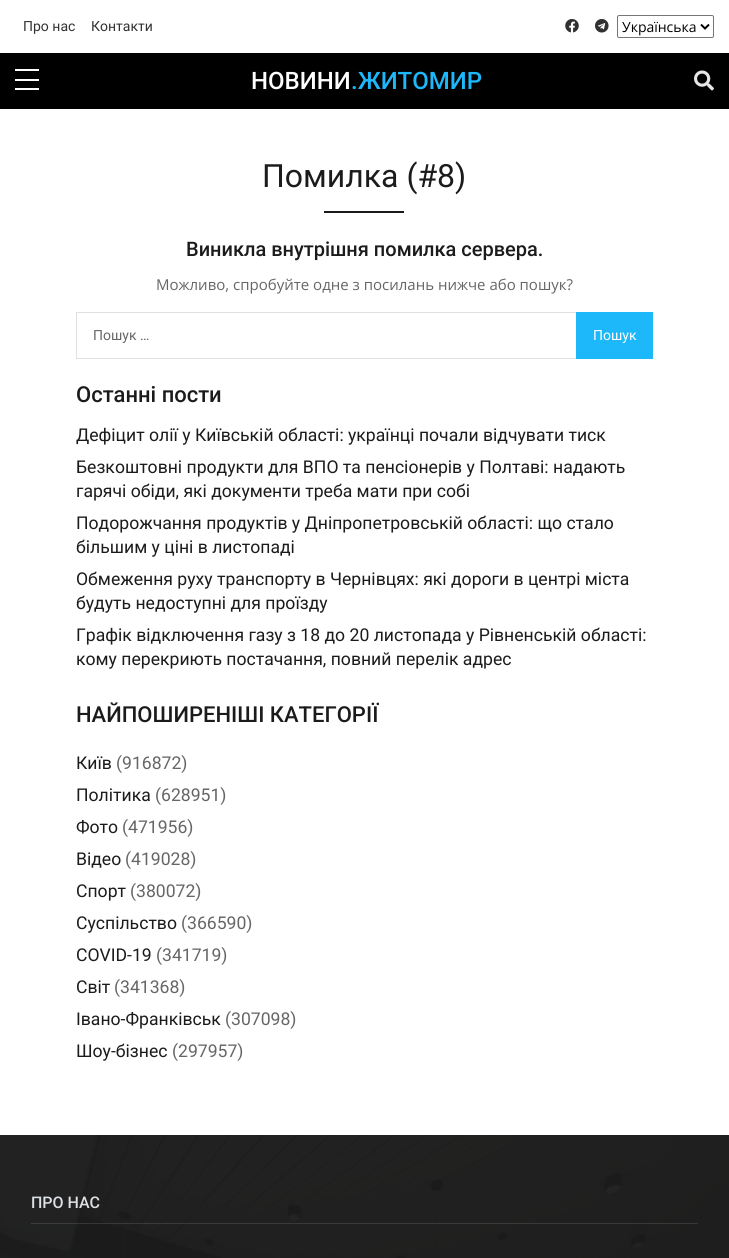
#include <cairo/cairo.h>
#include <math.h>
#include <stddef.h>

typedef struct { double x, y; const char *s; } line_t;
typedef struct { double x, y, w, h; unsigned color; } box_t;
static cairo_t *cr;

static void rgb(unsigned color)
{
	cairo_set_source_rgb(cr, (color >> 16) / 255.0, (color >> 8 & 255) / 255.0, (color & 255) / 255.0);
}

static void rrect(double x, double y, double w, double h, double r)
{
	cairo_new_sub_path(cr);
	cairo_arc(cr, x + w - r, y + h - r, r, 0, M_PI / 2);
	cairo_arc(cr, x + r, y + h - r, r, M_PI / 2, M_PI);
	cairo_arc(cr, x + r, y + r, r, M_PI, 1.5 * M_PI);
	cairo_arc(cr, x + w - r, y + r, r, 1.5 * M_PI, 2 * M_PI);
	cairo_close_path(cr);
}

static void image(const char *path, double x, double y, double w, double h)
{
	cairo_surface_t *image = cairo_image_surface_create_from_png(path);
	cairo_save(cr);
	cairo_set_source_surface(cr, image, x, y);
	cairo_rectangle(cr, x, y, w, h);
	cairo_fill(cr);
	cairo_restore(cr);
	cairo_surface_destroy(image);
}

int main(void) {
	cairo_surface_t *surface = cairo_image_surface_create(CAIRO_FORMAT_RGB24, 729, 1258);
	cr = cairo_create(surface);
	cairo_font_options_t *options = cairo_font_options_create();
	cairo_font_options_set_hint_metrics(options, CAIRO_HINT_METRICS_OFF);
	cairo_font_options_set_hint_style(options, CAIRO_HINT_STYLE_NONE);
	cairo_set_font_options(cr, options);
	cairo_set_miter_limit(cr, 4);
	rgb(0xffffff);
	cairo_paint(cr);
	image("img/1.png", 565, 19, 14, 14);
	image("img/2.png", 595, 19, 14, 14);
	rrect(617.5, 15.5, 96, 22, 1.5);
	rgb(0x767676);
	cairo_set_line_width(cr, 1);
	cairo_stroke(cr);
	cairo_new_path(cr);
	cairo_move_to(cr, 701, 24.5);
	cairo_line_to(cr, 705, 28.5);
	cairo_line_to(cr, 709, 24.5);
	rgb(0x000000);
	cairo_set_line_width(cr, 2);
	cairo_stroke(cr);
	{
		static const box_t items[] = {
			{0, 53, 729, 56, 0x000000},
			{15, 69, 24, 2, 0xffffff},
			{15, 79, 24, 2, 0xffffff},
			{15, 88, 24, 2, 0xffffff},
		};
		for (size_t i = 0; i < sizeof items / sizeof *items; i++) {
			rgb(items[i].color);
			cairo_rectangle(cr, items[i].x, items[i].y, items[i].w, items[i].h);
			cairo_fill(cr);
		}
	}
	image("img/3.png", 694, 70, 20, 21);
	rgb(0x1b1b1b);
	cairo_rectangle(cr, 324, 212, 80, 1);
	cairo_fill(cr);
	rgb(0x181818);
	cairo_rectangle(cr, 324, 211, 80, 1);
	cairo_fill(cr);
	cairo_rectangle(cr, 76.5, 312.5, 500, 46);
	rgb(0xe0e0e0);
	cairo_set_line_width(cr, 1);
	cairo_stroke(cr);
	rgb(0x1db8fa);
	cairo_rectangle(cr, 576, 312, 77, 47);
	cairo_fill(cr);
	image("img/4.png", 0, 1135, 729, 123);
	cairo_set_source_rgba(cr, 1, 1, 1, 0.12);
	cairo_rectangle(cr, 31, 1223, 667, 1);
	cairo_fill(cr);
	cairo_select_font_face(cr, "Roboto", CAIRO_FONT_SLANT_NORMAL, CAIRO_FONT_WEIGHT_NORMAL);
	cairo_set_font_size(cr, 14);
	rgb(0x323232);
	cairo_move_to(cr, 23, 31);
	cairo_show_text(cr, "Про нас");
	cairo_move_to(cr, 91, 31);
	cairo_show_text(cr, "Контакти");
	cairo_select_font_face(cr, "Open Sans", CAIRO_FONT_SLANT_NORMAL, CAIRO_FONT_WEIGHT_NORMAL);
	rgb(0x000000);
	cairo_move_to(cr, 622, 32);
	cairo_show_text(cr, "Українська");
	cairo_select_font_face(cr, "Roboto Medium", CAIRO_FONT_SLANT_NORMAL, CAIRO_FONT_WEIGHT_NORMAL);
	cairo_set_font_size(cr, 24);
	rgb(0xffffff);
	cairo_move_to(cr, 251, 89);
	cairo_show_text(cr, "НОВИНИ");
	rgb(0x1db8fa);
	cairo_move_to(cr, 351, 89);
	cairo_show_text(cr, ".ЖИТОМИР");
	cairo_select_font_face(cr, "Roboto", CAIRO_FONT_SLANT_NORMAL, CAIRO_FONT_WEIGHT_NORMAL);
	cairo_set_font_size(cr, 32);
	rgb(0x1b1b1b);
	cairo_move_to(cr, 262, 187);
	cairo_show_text(cr, "Помилка (#8)");
	cairo_select_font_face(cr, "Roboto Medium", CAIRO_FONT_SLANT_NORMAL, CAIRO_FONT_WEIGHT_NORMAL);
	cairo_set_font_size(cr, 20);
	cairo_move_to(cr, 186, 256);
	cairo_show_text(cr, "Виникла внутрішня помилка сервера.");
	cairo_select_font_face(cr, "Open Sans", CAIRO_FONT_SLANT_NORMAL, CAIRO_FONT_WEIGHT_NORMAL);
	cairo_set_font_size(cr, 15);
	rgb(0x666666);
	cairo_move_to(cr, 156, 290);
	cairo_show_text(cr, "Можливо, спробуйте одне з посилань нижче або пошук?");
	cairo_select_font_face(cr, "Roboto", CAIRO_FONT_SLANT_NORMAL, CAIRO_FONT_WEIGHT_NORMAL);
	cairo_set_font_size(cr, 14);
	cairo_move_to(cr, 93, 340);
	cairo_show_text(cr, "Пошук …");
	rgb(0xffffff);
	cairo_move_to(cr, 593, 340);
	cairo_show_text(cr, "Пошук");
	cairo_select_font_face(cr, "Roboto Medium", CAIRO_FONT_SLANT_NORMAL, CAIRO_FONT_WEIGHT_NORMAL);
	cairo_set_font_size(cr, 22);
	rgb(0x1b1b1b);
	cairo_move_to(cr, 76, 402);
	cairo_show_text(cr, "Останні пости");
	cairo_select_font_face(cr, "Roboto", CAIRO_FONT_SLANT_NORMAL, CAIRO_FONT_WEIGHT_NORMAL);
	cairo_set_font_size(cr, 17.6);
	{
		static const line_t items[] = {
			{76, 441, "Дефіцит олії у Київській області: українці почали відчувати тиск"},
			{76, 473, "Безкоштовні продукти для ВПО та пенсіонерів у Полтаві: надають"},
			{76, 497, "гарячі обіди, які документи треба мати при собі"},
			{76, 529, "Подорожчання продуктів у Дніпропетровській області: що стало"},
			{76, 553, "більшим у ціні в листопаді"},
			{76, 585, "Обмеження руху транспорту в Чернівцях: які дороги в центрі міста"},
			{76, 609, "будуть недоступні для проїзду"},
			{76, 641, "Графік відключення газу з 18 до 20 листопада у Рівненській області:"},
			{76, 665, "кому перекриють постачання, повний перелік адрес"},
		};
		for (size_t i = 0; i < sizeof items / sizeof *items; i++) {
			cairo_move_to(cr, items[i].x, items[i].y);
			cairo_show_text(cr, items[i].s);
		}
	}
	cairo_select_font_face(cr, "Roboto Medium", CAIRO_FONT_SLANT_NORMAL, CAIRO_FONT_WEIGHT_NORMAL);
	cairo_set_font_size(cr, 22);
	cairo_move_to(cr, 76, 722);
	cairo_show_text(cr, "НАЙПОШИРЕНІШІ КАТЕГОРІЇ");
	cairo_select_font_face(cr, "Roboto", CAIRO_FONT_SLANT_NORMAL, CAIRO_FONT_WEIGHT_NORMAL);
	cairo_set_font_size(cr, 17.6);
	cairo_move_to(cr, 76, 769);
	cairo_show_text(cr, "Київ");
	rgb(0x666666);
	cairo_move_to(cr, 116, 769);
	cairo_show_text(cr, "(916872)");
	rgb(0x1b1b1b);
	cairo_move_to(cr, 76, 801);
	cairo_show_text(cr, "Політика");
	rgb(0x666666);
	cairo_move_to(cr, 155, 801);
	cairo_show_text(cr, "(628951)");
	rgb(0x1b1b1b);
	cairo_move_to(cr, 76, 833);
	cairo_show_text(cr, "Фото");
	rgb(0x666666);
	cairo_move_to(cr, 122, 833);
	cairo_show_text(cr, "(471956)");
	rgb(0x1b1b1b);
	cairo_move_to(cr, 76, 865);
	cairo_show_text(cr, "Відео");
	rgb(0x666666);
	cairo_move_to(cr, 125, 865);
	cairo_show_text(cr, "(419028)");
	rgb(0x1b1b1b);
	cairo_move_to(cr, 76, 897);
	cairo_show_text(cr, "Спорт");
	rgb(0x666666);
	cairo_move_to(cr, 130, 897);
	cairo_show_text(cr, "(380072)");
	rgb(0x1b1b1b);
	cairo_move_to(cr, 76, 929);
	cairo_show_text(cr, "Суспільство");
	rgb(0x666666);
	cairo_move_to(cr, 181, 929);
	cairo_show_text(cr, "(366590)");
	rgb(0x1b1b1b);
	cairo_move_to(cr, 76, 961);
	cairo_show_text(cr, "COVID-19");
	rgb(0x666666);
	cairo_move_to(cr, 156, 961);
	cairo_show_text(cr, "(341719)");
	rgb(0x1b1b1b);
	cairo_move_to(cr, 76, 993);
	cairo_show_text(cr, "Світ");
	rgb(0x666666);
	cairo_move_to(cr, 114, 993);
	cairo_show_text(cr, "(341368)");
	rgb(0x1b1b1b);
	cairo_move_to(cr, 76, 1025);
	cairo_show_text(cr, "Івано-Франківськ");
	rgb(0x666666);
	cairo_move_to(cr, 225, 1025);
	cairo_show_text(cr, "(307098)");
	rgb(0x1b1b1b);
	cairo_move_to(cr, 76, 1057);
	cairo_show_text(cr, "Шоу-бізнес");
	rgb(0x666666);
	cairo_move_to(cr, 172, 1057);
	cairo_show_text(cr, "(297957)");
	cairo_select_font_face(cr, "Roboto Medium", CAIRO_FONT_SLANT_NORMAL, CAIRO_FONT_WEIGHT_NORMAL);
	cairo_set_font_size(cr, 16);
	rgb(0xdee2e6);
	cairo_move_to(cr, 31, 1208);
	cairo_show_text(cr, "ПРО НАС");
	cairo_surface_write_to_png(surface, "page.png");
	cairo_font_options_destroy(options);
	cairo_destroy(cr);
	cairo_surface_destroy(surface);
	return 0;
}
